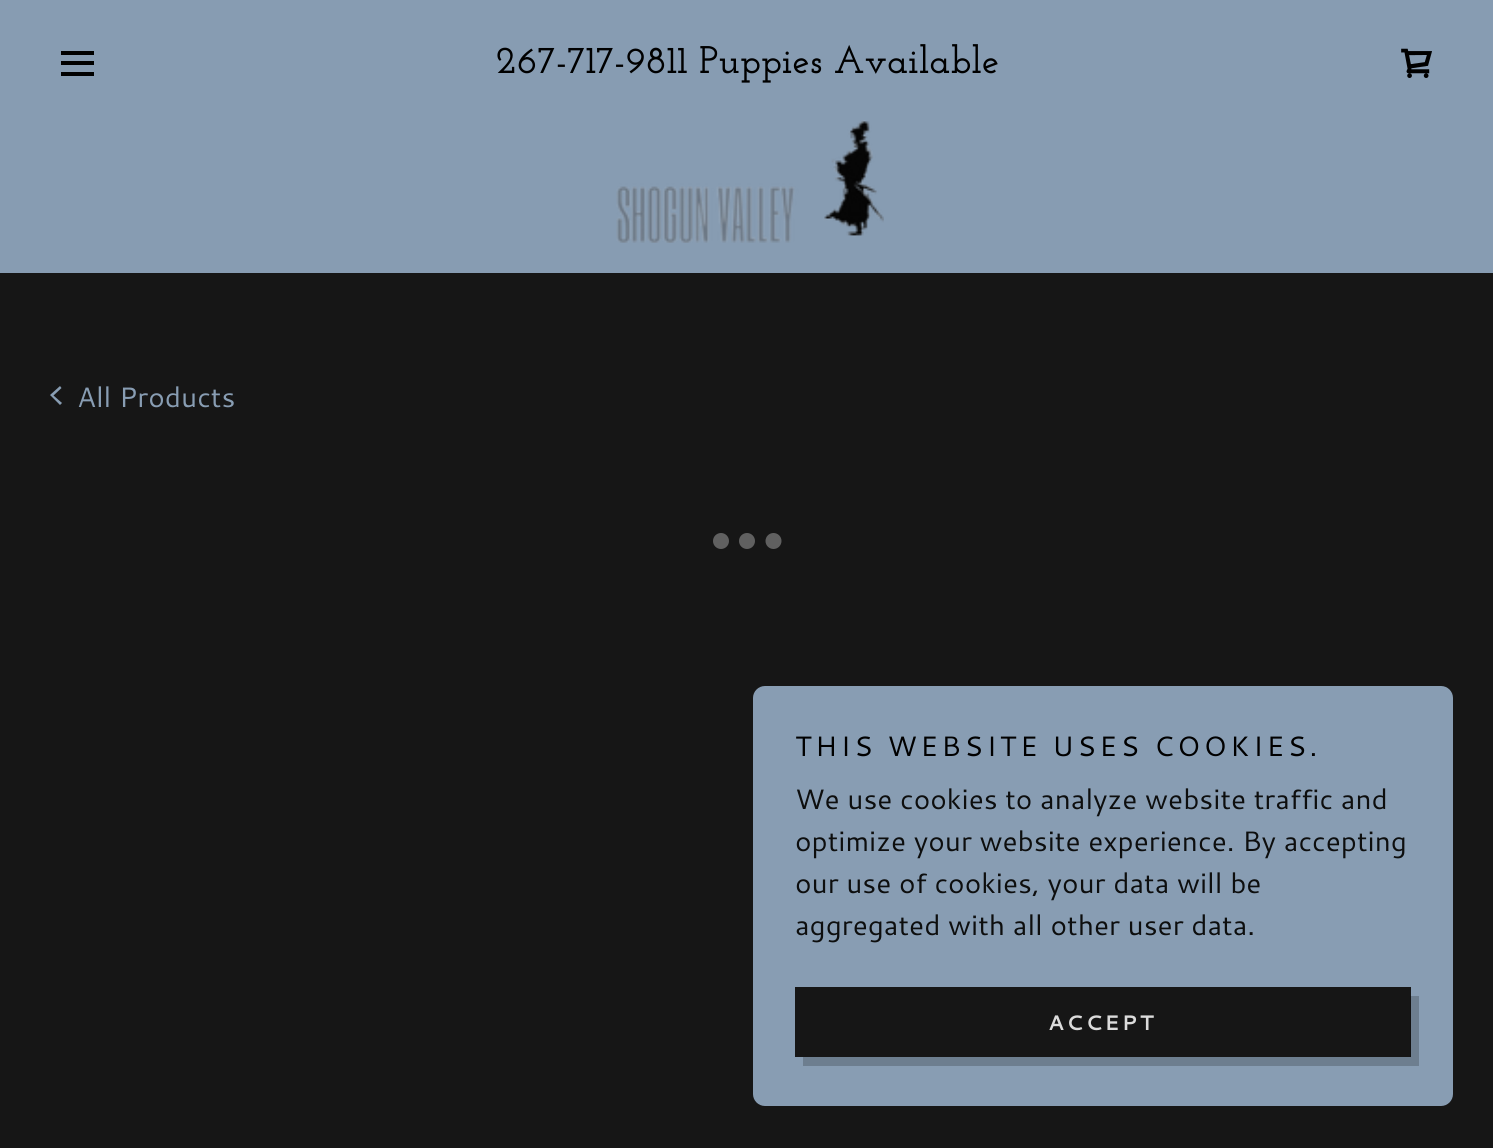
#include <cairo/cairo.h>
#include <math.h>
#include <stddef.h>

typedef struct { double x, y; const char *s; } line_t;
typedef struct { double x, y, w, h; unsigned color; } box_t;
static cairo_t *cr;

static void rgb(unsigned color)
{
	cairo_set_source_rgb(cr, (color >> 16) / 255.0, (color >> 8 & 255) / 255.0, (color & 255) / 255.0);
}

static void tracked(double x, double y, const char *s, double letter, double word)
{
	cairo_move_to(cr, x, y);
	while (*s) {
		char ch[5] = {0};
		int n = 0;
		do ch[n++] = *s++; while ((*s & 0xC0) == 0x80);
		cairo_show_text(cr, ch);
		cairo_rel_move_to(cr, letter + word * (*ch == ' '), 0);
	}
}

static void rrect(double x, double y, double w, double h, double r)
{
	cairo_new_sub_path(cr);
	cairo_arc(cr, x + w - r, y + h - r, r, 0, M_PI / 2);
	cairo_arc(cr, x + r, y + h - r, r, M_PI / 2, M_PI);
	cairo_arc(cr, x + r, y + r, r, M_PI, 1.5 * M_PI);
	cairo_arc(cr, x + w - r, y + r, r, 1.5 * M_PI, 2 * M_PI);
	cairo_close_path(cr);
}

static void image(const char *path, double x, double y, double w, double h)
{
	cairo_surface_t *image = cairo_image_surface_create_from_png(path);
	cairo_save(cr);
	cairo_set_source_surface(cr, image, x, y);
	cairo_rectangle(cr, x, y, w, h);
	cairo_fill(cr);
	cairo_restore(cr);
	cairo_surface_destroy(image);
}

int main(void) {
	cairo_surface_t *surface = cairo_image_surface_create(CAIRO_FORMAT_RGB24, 1493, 1148);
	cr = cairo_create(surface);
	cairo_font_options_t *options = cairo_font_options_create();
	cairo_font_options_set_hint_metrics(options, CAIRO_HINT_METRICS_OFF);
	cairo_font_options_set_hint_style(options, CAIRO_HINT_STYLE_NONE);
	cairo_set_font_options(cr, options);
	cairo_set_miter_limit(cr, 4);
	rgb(0x879cb2);
	cairo_paint(cr);
	{
		static const box_t items[] = {
			{61, 51, 33, 4, 0x000000},
			{61, 61, 33, 4, 0x000000},
			{61, 72, 33, 4, 0x000000},
		};
		for (size_t i = 0; i < sizeof items / sizeof *items; i++) {
			rgb(items[i].color);
			cairo_rectangle(cr, items[i].x, items[i].y, items[i].w, items[i].h);
			cairo_fill(cr);
		}
	}
	image("img/1.png", 1401, 48, 31, 30);
	image("img/2.png", 616, 120, 268, 123);
	rgb(0x161616);
	cairo_rectangle(cr, 0, 273, 1493, 875);
	cairo_fill(cr);
	rgb(0x889db3);
	cairo_set_fill_rule(cr, CAIRO_FILL_RULE_EVEN_ODD);
	cairo_new_path(cr);
	cairo_move_to(cr, 60, 386);
	cairo_line_to(cr, 50, 395);
	cairo_line_to(cr, 60, 405);
	cairo_line_to(cr, 62, 403);
	cairo_line_to(cr, 53.5, 395.5);
	cairo_line_to(cr, 61.5, 388);
	cairo_close_path(cr);
	cairo_fill(cr);
	rgb(0x606060);
	cairo_arc(cr, 721, 541, 8, 0, 2 * M_PI);
	cairo_fill(cr);
	cairo_arc(cr, 747, 541, 8, 0, 2 * M_PI);
	cairo_fill(cr);
	cairo_arc(cr, 773.5, 541, 8, 0, 2 * M_PI);
	cairo_fill(cr);
	rgb(0x889db3);
	rrect(753, 686, 700, 420, 12);
	cairo_fill(cr);
	rgb(0x161616);
	cairo_rectangle(cr, 795, 987, 616, 70);
	cairo_fill(cr);
	cairo_set_source_rgba(cr, 0, 0, 0, 0.2);
	cairo_set_fill_rule(cr, CAIRO_FILL_RULE_WINDING);
	cairo_new_path(cr);
	cairo_move_to(cr, 803, 1057);
	cairo_line_to(cr, 803, 1066);
	cairo_line_to(cr, 1419, 1066);
	cairo_line_to(cr, 1419, 996);
	cairo_line_to(cr, 1410, 996);
	cairo_line_to(cr, 1410, 1057);
	cairo_close_path(cr);
	cairo_fill(cr);
	cairo_select_font_face(cr, "Josefin Slab Thin", CAIRO_FONT_SLANT_NORMAL, CAIRO_FONT_WEIGHT_NORMAL);
	cairo_set_font_size(cr, 38.5);
	rgb(0x000000);
	cairo_move_to(cr, 496, 73);
	cairo_show_text(cr, "267-717-9811 Puppies Available");
	cairo_select_font_face(cr, "Cantarell", CAIRO_FONT_SLANT_NORMAL, CAIRO_FONT_WEIGHT_NORMAL);
	cairo_set_font_size(cr, 28);
	rgb(0x889db3);
	cairo_move_to(cr, 77, 407);
	cairo_show_text(cr, "All Products");
	rgb(0x000000);
	tracked(795, 756, "THIS WEBSITE USES COOKIES.", 3.5, 0);
	rgb(0x0d0e0e);
	{
		static const line_t items[] = {
			{795, 809, "We use cookies to analyze website traffic and"},
			{795, 851, "optimize your website experience. By accepting"},
			{795, 893, "our use of cookies, your data will be"},
			{795, 935, "aggregated with all other user data."},
		};
		for (size_t i = 0; i < sizeof items / sizeof *items; i++) {
			cairo_move_to(cr, items[i].x, items[i].y);
			cairo_show_text(cr, items[i].s);
		}
	}
	cairo_select_font_face(cr, "Cantarell", CAIRO_FONT_SLANT_NORMAL, CAIRO_FONT_WEIGHT_BOLD);
	cairo_set_font_size(cr, 21);
	rgb(0xdbdbdb);
	tracked(1048, 1030, "ACCEPT", 2.5, 0);
	cairo_surface_write_to_png(surface, "page.png");
	cairo_font_options_destroy(options);
	cairo_destroy(cr);
	cairo_surface_destroy(surface);
	return 0;
}
